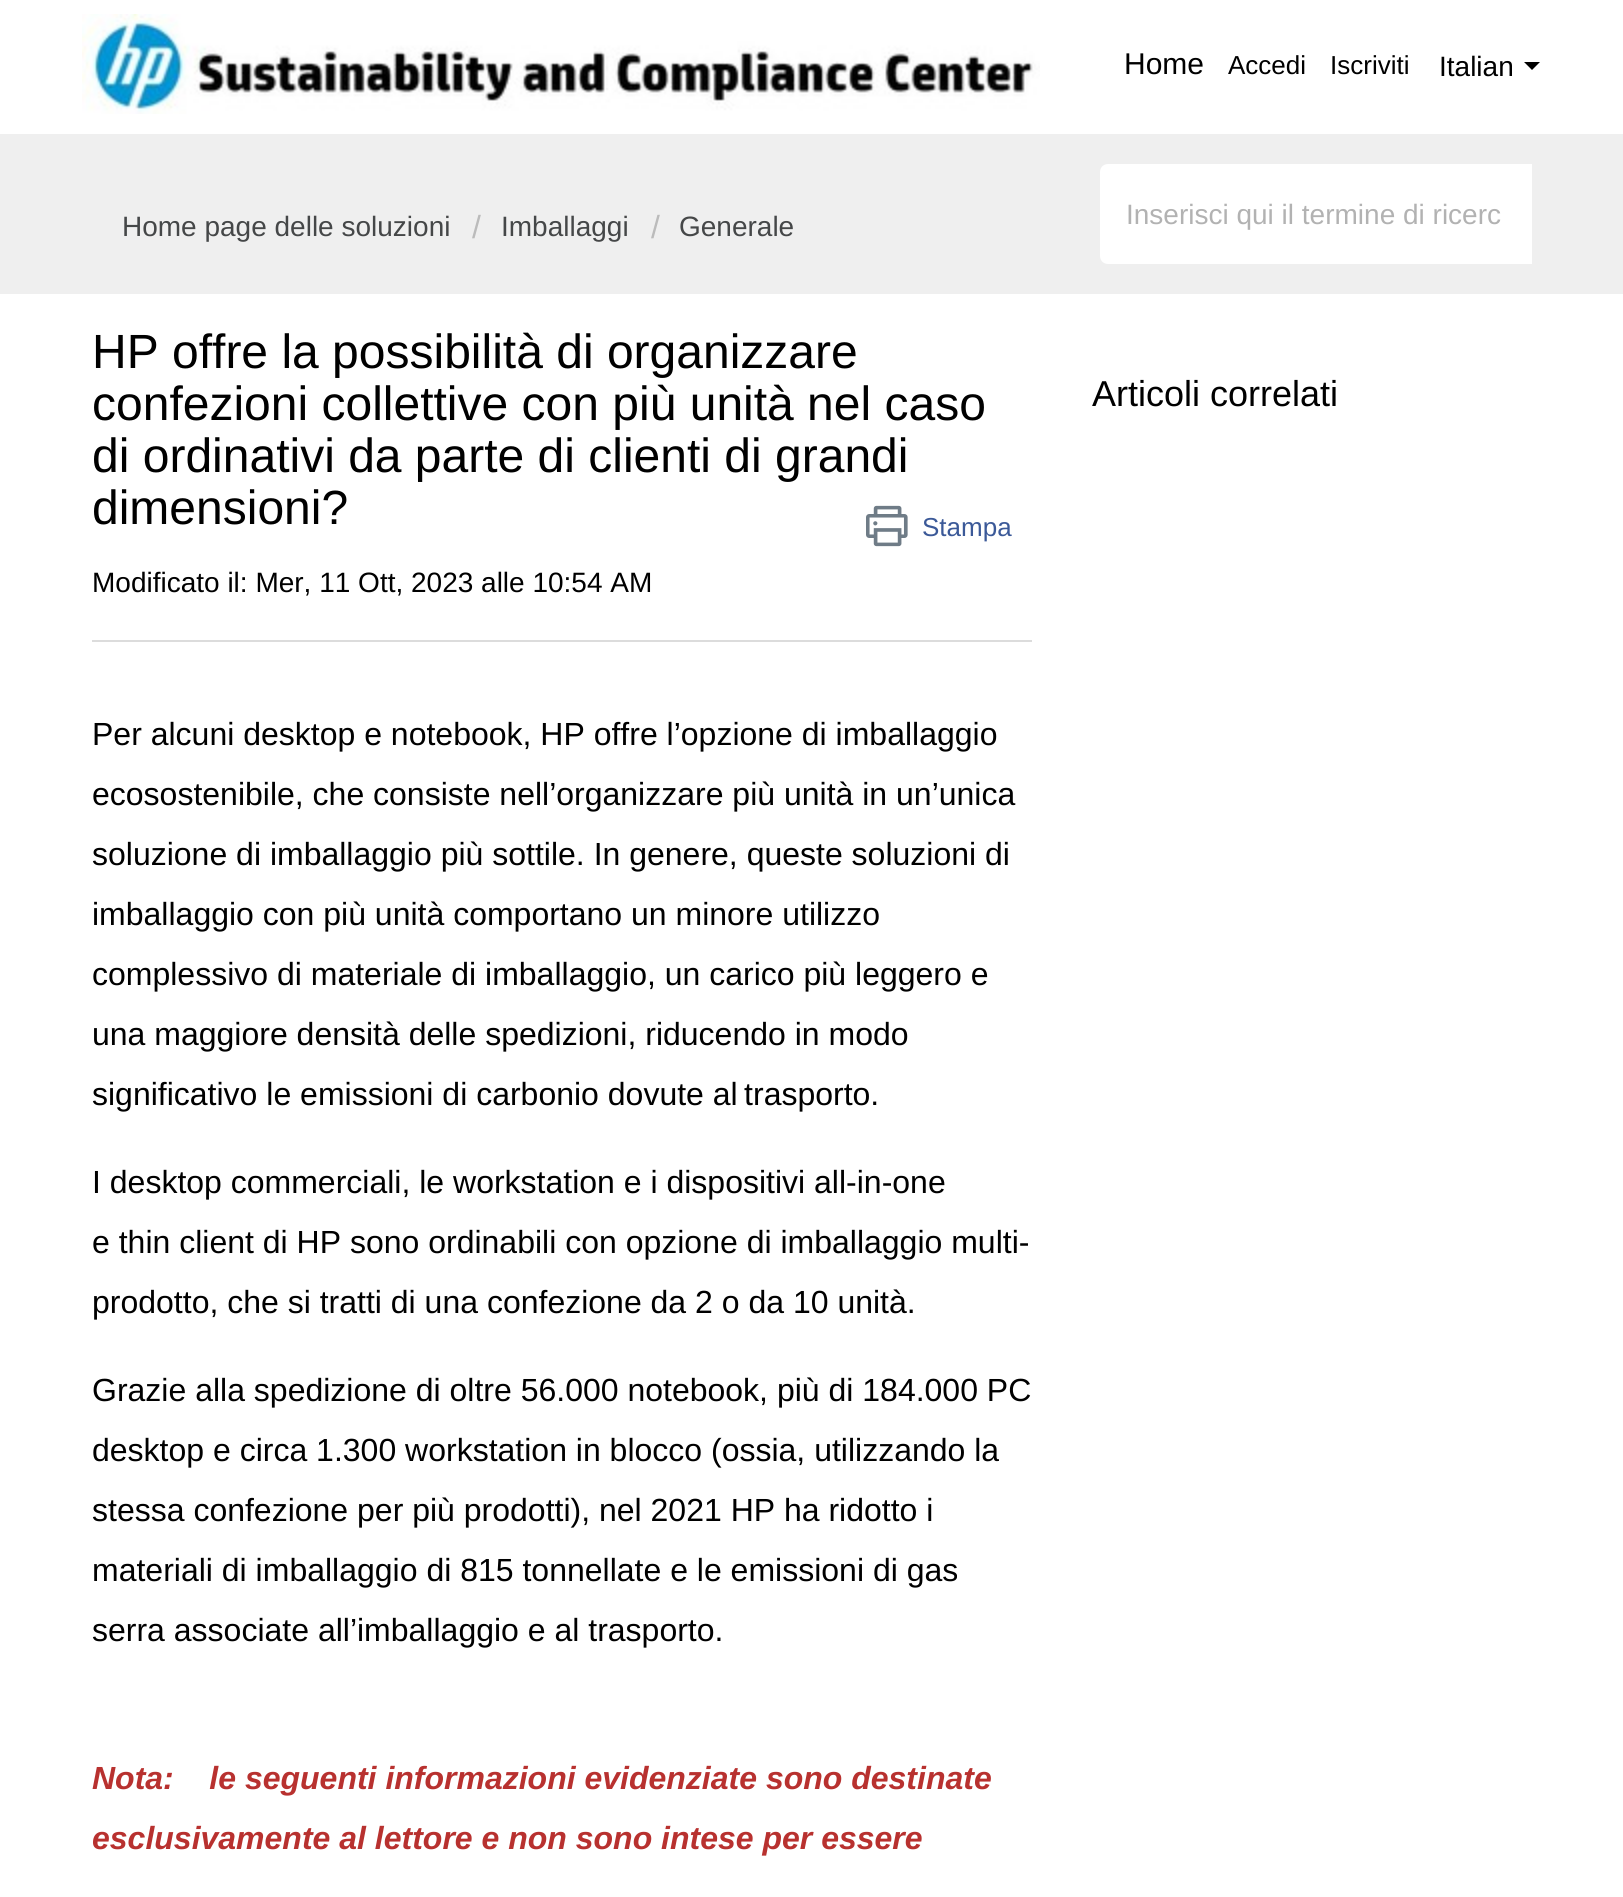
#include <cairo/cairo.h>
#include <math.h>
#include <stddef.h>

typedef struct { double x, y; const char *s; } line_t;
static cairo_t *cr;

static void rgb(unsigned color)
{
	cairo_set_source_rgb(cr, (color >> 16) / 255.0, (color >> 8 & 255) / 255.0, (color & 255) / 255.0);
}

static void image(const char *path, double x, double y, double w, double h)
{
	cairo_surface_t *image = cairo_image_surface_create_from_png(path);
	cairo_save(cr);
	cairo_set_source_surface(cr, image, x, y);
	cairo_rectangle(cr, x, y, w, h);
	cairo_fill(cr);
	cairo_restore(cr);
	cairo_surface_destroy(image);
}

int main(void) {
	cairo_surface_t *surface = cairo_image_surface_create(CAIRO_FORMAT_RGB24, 1623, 1897);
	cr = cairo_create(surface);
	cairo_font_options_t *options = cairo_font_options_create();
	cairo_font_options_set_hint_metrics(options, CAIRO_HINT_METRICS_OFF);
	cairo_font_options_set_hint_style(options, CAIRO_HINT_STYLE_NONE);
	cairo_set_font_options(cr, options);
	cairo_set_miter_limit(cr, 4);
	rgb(0xffffff);
	cairo_paint(cr);
	image("img/1.png", 82, 14, 958, 100);
	rgb(0x000000);
	cairo_new_path(cr);
	cairo_move_to(cr, 1524, 62);
	cairo_line_to(cr, 1540, 62);
	cairo_line_to(cr, 1532, 70);
	cairo_close_path(cr);
	cairo_fill(cr);
	rgb(0xefefef);
	cairo_rectangle(cr, 0, 134, 1623, 160);
	cairo_fill(cr);
	rgb(0xffffff);
	cairo_new_path(cr);
	cairo_move_to(cr, 1108, 164);
	cairo_line_to(cr, 1532, 164);
	cairo_line_to(cr, 1532, 264);
	cairo_line_to(cr, 1108, 264);
	cairo_curve_to(cr, 1103.5, 264, 1100, 260.5, 1100, 256);
	cairo_line_to(cr, 1100, 172);
	cairo_curve_to(cr, 1100, 167.5, 1103.5, 164, 1108, 164);
	cairo_close_path(cr);
	cairo_fill(cr);
	image("img/2.png", 866, 505, 42, 42);
	rgb(0xdcdcdc);
	cairo_rectangle(cr, 92, 640, 940, 2);
	cairo_fill(cr);
	cairo_select_font_face(cr, "Liberation Sans", CAIRO_FONT_SLANT_NORMAL, CAIRO_FONT_WEIGHT_NORMAL);
	cairo_set_font_size(cr, 30);
	rgb(0x000000);
	cairo_move_to(cr, 1124, 74);
	cairo_show_text(cr, "Home");
	cairo_set_font_size(cr, 26);
	cairo_move_to(cr, 1228, 74);
	cairo_show_text(cr, "Accedi");
	cairo_move_to(cr, 1330, 74);
	cairo_show_text(cr, "Iscriviti");
	cairo_set_font_size(cr, 28);
	cairo_move_to(cr, 1439, 76);
	cairo_show_text(cr, "Italian");
	rgb(0xb2b2b2);
	cairo_move_to(cr, 1126, 224);
	cairo_show_text(cr, "Inserisci qui il termine di ricerc");
	rgb(0x454748);
	cairo_move_to(cr, 122, 236);
	cairo_show_text(cr, "Home page delle soluzioni");
	cairo_set_font_size(cr, 32);
	rgb(0xbbbbbb);
	cairo_move_to(cr, 472, 238);
	cairo_show_text(cr, "/");
	cairo_set_font_size(cr, 28);
	rgb(0x454748);
	cairo_move_to(cr, 501, 236);
	cairo_show_text(cr, "Imballaggi");
	cairo_set_font_size(cr, 32);
	rgb(0xbbbbbb);
	cairo_move_to(cr, 651, 238);
	cairo_show_text(cr, "/");
	cairo_set_font_size(cr, 28);
	rgb(0x454748);
	cairo_move_to(cr, 679, 236);
	cairo_show_text(cr, "Generale");
	cairo_set_font_size(cr, 48);
	rgb(0x000000);
	{
		static const line_t items[] = {
			{92, 368, "HP offre la possibilità di organizzare"},
			{92, 420, "confezioni collettive con più unità nel caso"},
			{92, 472, "di ordinativi da parte di clienti di grandi"},
			{92, 524, "dimensioni?"},
		};
		for (size_t i = 0; i < sizeof items / sizeof *items; i++) {
			cairo_move_to(cr, items[i].x, items[i].y);
			cairo_show_text(cr, items[i].s);
		}
	}
	cairo_set_font_size(cr, 26);
	rgb(0x3b5998);
	cairo_move_to(cr, 922, 536);
	cairo_show_text(cr, "Stampa");
	cairo_set_font_size(cr, 28);
	rgb(0x000000);
	cairo_move_to(cr, 92, 592);
	cairo_show_text(cr, "Modificato il: Mer, 11 Ott, 2023 alle 10:54 AM");
	cairo_set_font_size(cr, 32);
	{
		static const line_t items[] = {
			{92, 745, "Per alcuni desktop e notebook, HP offre l’opzione di imballaggio"},
			{92, 805, "ecosostenibile, che consiste nell’organizzare più unità in un’unica"},
			{92, 865, "soluzione di imballaggio più sottile. In genere, queste soluzioni di"},
			{92, 925, "imballaggio con più unità comportano un minore utilizzo"},
			{92, 985, "complessivo di materiale di imballaggio, un carico più leggero e"},
			{92, 1045, "una maggiore densità delle spedizioni, riducendo in modo"},
			{92, 1105, "significativo le emissioni di carbonio dovute al trasporto."},
			{92, 1193, "I desktop commerciali, le workstation e i dispositivi all-in-one"},
			{92, 1253, "e thin client di HP sono ordinabili con opzione di imballaggio multi-"},
			{92, 1313, "prodotto, che si tratti di una confezione da 2 o da 10 unità."},
			{92, 1401, "Grazie alla spedizione di oltre 56.000 notebook, più di 184.000 PC"},
			{92, 1461, "desktop e circa 1.300 workstation in blocco (ossia, utilizzando la"},
			{92, 1521, "stessa confezione per più prodotti), nel 2021 HP ha ridotto i"},
			{92, 1581, "materiali di imballaggio di 815 tonnellate e le emissioni di gas"},
			{92, 1641, "serra associate all’imballaggio e al trasporto."},
		};
		for (size_t i = 0; i < sizeof items / sizeof *items; i++) {
			cairo_move_to(cr, items[i].x, items[i].y);
			cairo_show_text(cr, items[i].s);
		}
	}
	cairo_select_font_face(cr, "Liberation Sans", CAIRO_FONT_SLANT_ITALIC, CAIRO_FONT_WEIGHT_BOLD);
	rgb(0xb8312f);
	cairo_move_to(cr, 92, 1789);
	cairo_show_text(cr, "Nota:    le seguenti informazioni evidenziate sono destinate");
	cairo_move_to(cr, 92, 1849);
	cairo_show_text(cr, "esclusivamente al lettore e non sono intese per essere");
	cairo_select_font_face(cr, "Liberation Sans", CAIRO_FONT_SLANT_NORMAL, CAIRO_FONT_WEIGHT_NORMAL);
	cairo_set_font_size(cr, 36);
	rgb(0x000000);
	cairo_move_to(cr, 1092, 406);
	cairo_show_text(cr, "Articoli correlati");
	cairo_surface_write_to_png(surface, "page.png");
	cairo_font_options_destroy(options);
	cairo_destroy(cr);
	cairo_surface_destroy(surface);
	return 0;
}
